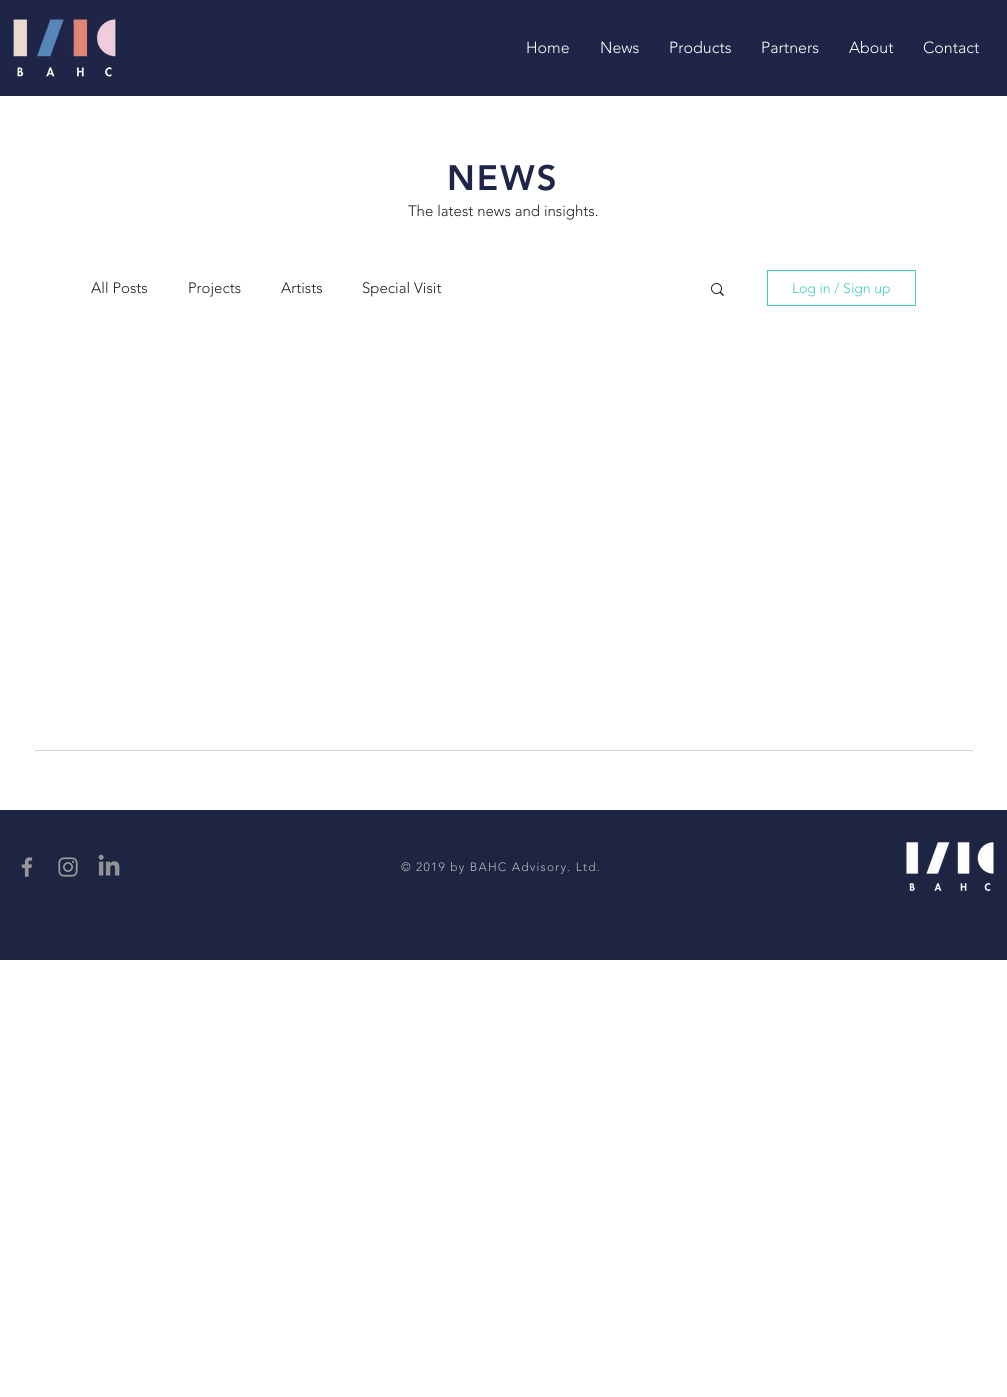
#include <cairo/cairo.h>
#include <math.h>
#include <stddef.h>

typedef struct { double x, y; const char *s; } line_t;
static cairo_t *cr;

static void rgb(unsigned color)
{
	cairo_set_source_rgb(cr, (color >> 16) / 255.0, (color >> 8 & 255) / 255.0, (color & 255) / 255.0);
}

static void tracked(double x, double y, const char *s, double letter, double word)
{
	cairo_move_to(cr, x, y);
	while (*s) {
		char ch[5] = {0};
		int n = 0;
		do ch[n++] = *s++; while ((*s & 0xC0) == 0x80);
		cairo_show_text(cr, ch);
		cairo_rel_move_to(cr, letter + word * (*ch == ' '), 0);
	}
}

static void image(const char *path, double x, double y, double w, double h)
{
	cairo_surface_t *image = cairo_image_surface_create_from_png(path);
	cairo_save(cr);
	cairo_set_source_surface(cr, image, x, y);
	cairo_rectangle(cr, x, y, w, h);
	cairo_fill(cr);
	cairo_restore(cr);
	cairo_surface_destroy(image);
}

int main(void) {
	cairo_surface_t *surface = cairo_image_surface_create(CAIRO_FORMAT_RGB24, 1007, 1397);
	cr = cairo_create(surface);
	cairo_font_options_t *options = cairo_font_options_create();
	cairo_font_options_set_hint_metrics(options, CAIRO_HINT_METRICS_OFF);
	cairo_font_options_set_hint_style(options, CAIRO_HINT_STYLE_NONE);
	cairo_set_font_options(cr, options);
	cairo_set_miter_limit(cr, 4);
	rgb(0xffffff);
	cairo_paint(cr);
	rgb(0x1e2546);
	cairo_rectangle(cr, 0, 0, 1007, 96);
	cairo_fill(cr);
	image("img/1.png", 13, 19, 103, 58);
	image("img/2.png", 711, 283, 13, 13);
	cairo_rectangle(cr, 767.5, 270.5, 148, 35);
	rgb(0x3eccb5);
	cairo_set_line_width(cr, 1);
	cairo_stroke(cr);
	rgb(0xd2d2d2);
	cairo_rectangle(cr, 35, 750, 938, 1);
	cairo_fill(cr);
	rgb(0x1e2543);
	cairo_rectangle(cr, 0, 810, 1007, 150);
	cairo_fill(cr);
	image("img/3.png", 21, 857, 12, 20);
	image("img/4.png", 58, 857, 20, 20);
	image("img/5.png", 98, 854, 22, 22);
	image("img/6.png", 906, 842, 88, 49);
	cairo_select_font_face(cr, "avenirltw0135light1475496 Light", CAIRO_FONT_SLANT_NORMAL, CAIRO_FONT_WEIGHT_NORMAL);
	cairo_set_font_size(cr, 16);
	rgb(0xffffff);
	{
		static const line_t items[] = {
			{526, 53, "Home"},
			{600, 53, "News"},
			{669, 53, "Products"},
			{761, 53, "Partners"},
			{849, 53, "About"},
			{923, 53, "Contact"},
		};
		for (size_t i = 0; i < sizeof items / sizeof *items; i++) {
			cairo_move_to(cr, items[i].x, items[i].y);
			cairo_show_text(cr, items[i].s);
		}
	}
	cairo_select_font_face(cr, "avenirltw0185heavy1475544 Black", CAIRO_FONT_SLANT_NORMAL, CAIRO_FONT_WEIGHT_NORMAL);
	cairo_set_font_size(cr, 35);
	rgb(0x1e2546);
	tracked(447, 190, "NEWS", 2, 0);
	cairo_select_font_face(cr, "avenirltw0135light1475496 Light", CAIRO_FONT_SLANT_NORMAL, CAIRO_FONT_WEIGHT_NORMAL);
	cairo_set_font_size(cr, 15);
	rgb(0x212121);
	{
		static const line_t items[] = {
			{408, 216, "The latest news and insights."},
			{91, 293, "All Posts"},
			{188, 293, "Projects"},
			{281, 293, "Artists"},
			{362, 293, "Special Visit"},
		};
		for (size_t i = 0; i < sizeof items / sizeof *items; i++) {
			cairo_move_to(cr, items[i].x, items[i].y);
			cairo_show_text(cr, items[i].s);
		}
	}
	cairo_set_font_size(cr, 14);
	rgb(0x3eccb5);
	cairo_move_to(cr, 792, 293);
	cairo_show_text(cr, "Log in / Sign up");
	cairo_set_font_size(cr, 12);
	rgb(0xbab8b8);
	tracked(401, 871, "© 2019 by BAHC Advisory. Ltd.", 1.2, 0);
	cairo_surface_write_to_png(surface, "page.png");
	cairo_font_options_destroy(options);
	cairo_destroy(cr);
	cairo_surface_destroy(surface);
	return 0;
}
